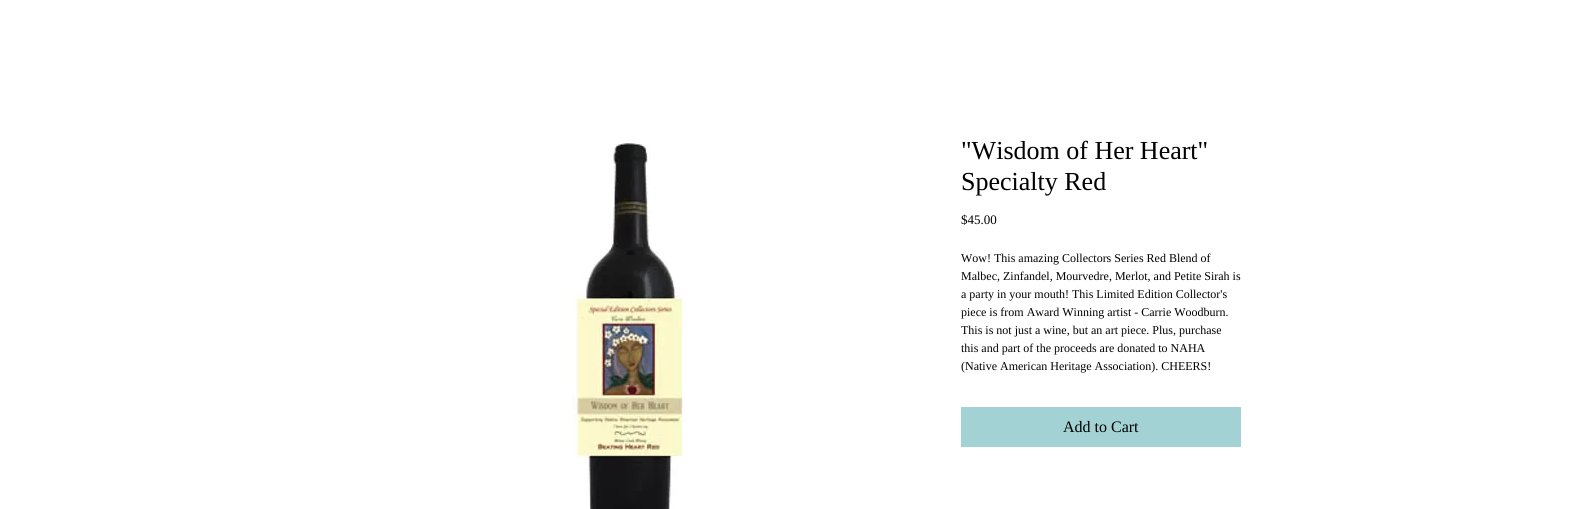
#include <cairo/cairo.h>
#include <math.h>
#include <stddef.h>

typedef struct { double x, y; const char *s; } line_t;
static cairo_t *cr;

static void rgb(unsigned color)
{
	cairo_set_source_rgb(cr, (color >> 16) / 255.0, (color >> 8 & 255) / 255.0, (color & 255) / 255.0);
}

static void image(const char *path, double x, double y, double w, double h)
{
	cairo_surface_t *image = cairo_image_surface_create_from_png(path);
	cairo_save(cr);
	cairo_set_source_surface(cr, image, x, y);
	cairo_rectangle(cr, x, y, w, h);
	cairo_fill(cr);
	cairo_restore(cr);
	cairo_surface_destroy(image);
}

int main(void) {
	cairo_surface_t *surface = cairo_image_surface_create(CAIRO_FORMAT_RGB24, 1582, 509);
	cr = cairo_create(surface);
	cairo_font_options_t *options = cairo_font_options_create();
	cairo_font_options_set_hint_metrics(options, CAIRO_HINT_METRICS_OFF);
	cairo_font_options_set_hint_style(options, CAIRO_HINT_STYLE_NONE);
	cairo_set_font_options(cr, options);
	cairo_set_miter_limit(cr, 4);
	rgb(0xffffff);
	cairo_paint(cr);
	image("img/1.png", 572, 143, 111, 366);
	rgb(0xa3d2d4);
	cairo_rectangle(cr, 961, 407, 280, 40);
	cairo_fill(cr);
	cairo_select_font_face(cr, "Liberation Serif", CAIRO_FONT_SLANT_NORMAL, CAIRO_FONT_WEIGHT_NORMAL);
	cairo_set_font_size(cr, 26);
	rgb(0x000000);
	cairo_move_to(cr, 961, 159);
	cairo_show_text(cr, "\"Wisdom of Her Heart\"");
	cairo_move_to(cr, 961, 190);
	cairo_show_text(cr, "Specialty Red");
	cairo_set_font_size(cr, 13);
	cairo_move_to(cr, 961, 224);
	cairo_show_text(cr, "$45.00");
	cairo_set_font_size(cr, 12);
	{
		static const line_t items[] = {
			{961, 262, "Wow! This amazing Collectors Series Red Blend of"},
			{961, 280, "Malbec, Zinfandel, Mourvedre, Merlot, and Petite Sirah is"},
			{961, 298, "a party in your mouth! This Limited Edition Collector's"},
			{961, 316, "piece is from Award Winning artist - Carrie Woodburn."},
			{961, 334, "This is not just a wine, but an art piece. Plus, purchase"},
			{961, 352, "this and part of the proceeds are donated to NAHA"},
			{961, 370, "(Native American Heritage Association). CHEERS!"},
		};
		for (size_t i = 0; i < sizeof items / sizeof *items; i++) {
			cairo_move_to(cr, items[i].x, items[i].y);
			cairo_show_text(cr, items[i].s);
		}
	}
	cairo_set_font_size(cr, 16);
	cairo_move_to(cr, 1063, 432);
	cairo_show_text(cr, "Add to Cart");
	cairo_surface_write_to_png(surface, "page.png");
	cairo_font_options_destroy(options);
	cairo_destroy(cr);
	cairo_surface_destroy(surface);
	return 0;
}
